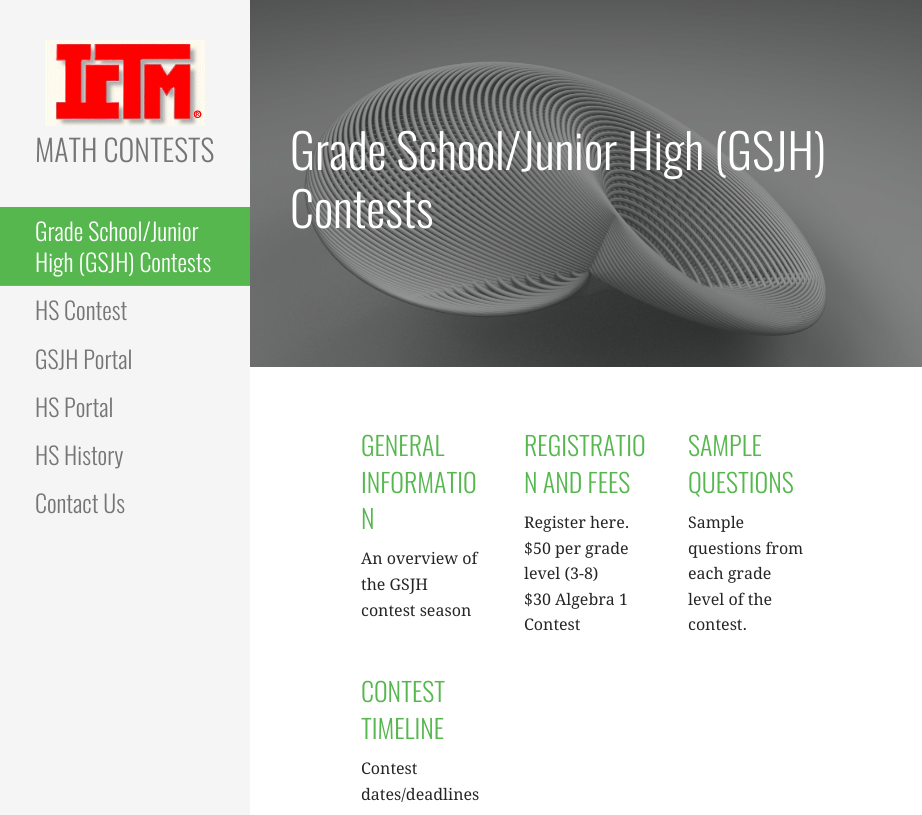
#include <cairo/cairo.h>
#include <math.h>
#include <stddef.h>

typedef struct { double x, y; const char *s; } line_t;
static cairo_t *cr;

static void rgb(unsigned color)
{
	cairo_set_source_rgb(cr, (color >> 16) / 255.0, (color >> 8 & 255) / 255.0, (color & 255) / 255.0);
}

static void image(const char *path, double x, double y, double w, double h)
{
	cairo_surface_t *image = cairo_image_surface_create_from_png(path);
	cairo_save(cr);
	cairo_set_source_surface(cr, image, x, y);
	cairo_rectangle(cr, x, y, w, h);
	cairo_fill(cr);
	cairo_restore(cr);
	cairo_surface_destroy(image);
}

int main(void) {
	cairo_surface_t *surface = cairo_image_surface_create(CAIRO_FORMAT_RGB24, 922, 815);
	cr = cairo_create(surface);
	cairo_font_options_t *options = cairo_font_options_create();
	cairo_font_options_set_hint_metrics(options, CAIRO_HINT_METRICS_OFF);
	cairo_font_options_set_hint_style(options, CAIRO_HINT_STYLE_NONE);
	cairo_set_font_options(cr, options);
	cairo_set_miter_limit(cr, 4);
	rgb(0xffffff);
	cairo_paint(cr);
	image("img/1.png", 250, 0, 672, 367);
	rgb(0xf5f5f5);
	cairo_rectangle(cr, 0, 0, 250, 815);
	cairo_fill(cr);
	image("img/2.png", 45, 40, 160, 86);
	rgb(0x55b74e);
	cairo_rectangle(cr, 0, 207, 250, 78);
	cairo_fill(cr);
	rgb(0x66be60);
	cairo_rectangle(cr, 0, 285, 250, 1);
	cairo_fill(cr);
	cairo_select_font_face(cr, "Oswald Light", CAIRO_FONT_SLANT_NORMAL, CAIRO_FONT_WEIGHT_NORMAL);
	cairo_set_font_size(cr, 30);
	rgb(0x757575);
	cairo_move_to(cr, 35, 162);
	cairo_show_text(cr, "MATH CONTESTS");
	cairo_set_font_size(cr, 24);
	rgb(0xffffff);
	cairo_move_to(cr, 35, 241);
	cairo_show_text(cr, "Grade School/Junior");
	cairo_move_to(cr, 35, 272);
	cairo_show_text(cr, "High (GSJH) Contests");
	rgb(0x757575);
	{
		static const line_t items[] = {
			{35, 320, "HS Contest"},
			{35, 369, "GSJH Portal"},
			{35, 417, "HS Portal"},
			{35, 465, "HS History"},
			{35, 513, "Contact Us"},
		};
		for (size_t i = 0; i < sizeof items / sizeof *items; i++) {
			cairo_move_to(cr, items[i].x, items[i].y);
			cairo_show_text(cr, items[i].s);
		}
	}
	cairo_set_font_size(cr, 48);
	rgb(0xffffff);
	cairo_move_to(cr, 290, 170);
	cairo_show_text(cr, "Grade School/Junior High (GSJH)");
	cairo_move_to(cr, 290, 228);
	cairo_show_text(cr, "Contests");
	cairo_set_font_size(cr, 26);
	rgb(0x55b74e);
	{
		static const line_t items[] = {
			{361, 456, "GENERAL"},
			{361, 493, "INFORMATIO"},
			{361, 529, "N"},
		};
		for (size_t i = 0; i < sizeof items / sizeof *items; i++) {
			cairo_move_to(cr, items[i].x, items[i].y);
			cairo_show_text(cr, items[i].s);
		}
	}
	cairo_select_font_face(cr, "Droid Serif", CAIRO_FONT_SLANT_NORMAL, CAIRO_FONT_WEIGHT_NORMAL);
	cairo_set_font_size(cr, 16);
	rgb(0x252525);
	{
		static const line_t items[] = {
			{361, 564, "An overview of"},
			{361, 590, "the GSJH"},
			{361, 616, "contest season"},
		};
		for (size_t i = 0; i < sizeof items / sizeof *items; i++) {
			cairo_move_to(cr, items[i].x, items[i].y);
			cairo_show_text(cr, items[i].s);
		}
	}
	cairo_select_font_face(cr, "Oswald Light", CAIRO_FONT_SLANT_NORMAL, CAIRO_FONT_WEIGHT_NORMAL);
	cairo_set_font_size(cr, 26);
	rgb(0x55b74e);
	cairo_move_to(cr, 361, 702);
	cairo_show_text(cr, "CONTEST");
	cairo_move_to(cr, 361, 739);
	cairo_show_text(cr, "TIMELINE");
	cairo_select_font_face(cr, "Droid Serif", CAIRO_FONT_SLANT_NORMAL, CAIRO_FONT_WEIGHT_NORMAL);
	cairo_set_font_size(cr, 16);
	rgb(0x252525);
	cairo_move_to(cr, 361, 774);
	cairo_show_text(cr, "Contest");
	cairo_move_to(cr, 361, 800);
	cairo_show_text(cr, "dates/deadlines");
	cairo_select_font_face(cr, "Oswald Light", CAIRO_FONT_SLANT_NORMAL, CAIRO_FONT_WEIGHT_NORMAL);
	cairo_set_font_size(cr, 26);
	rgb(0x55b74e);
	cairo_move_to(cr, 524, 456);
	cairo_show_text(cr, "REGISTRATIO");
	cairo_move_to(cr, 524, 493);
	cairo_show_text(cr, "N AND FEES");
	cairo_select_font_face(cr, "Droid Serif", CAIRO_FONT_SLANT_NORMAL, CAIRO_FONT_WEIGHT_NORMAL);
	cairo_set_font_size(cr, 16);
	rgb(0x252525);
	{
		static const line_t items[] = {
			{524, 528, "Register here."},
			{524, 554, "$50 per grade"},
			{524, 579, "level (3-8)"},
			{524, 605, "$30 Algebra 1"},
			{524, 630, "Contest"},
		};
		for (size_t i = 0; i < sizeof items / sizeof *items; i++) {
			cairo_move_to(cr, items[i].x, items[i].y);
			cairo_show_text(cr, items[i].s);
		}
	}
	cairo_select_font_face(cr, "Oswald Light", CAIRO_FONT_SLANT_NORMAL, CAIRO_FONT_WEIGHT_NORMAL);
	cairo_set_font_size(cr, 26);
	rgb(0x55b74e);
	cairo_move_to(cr, 688, 456);
	cairo_show_text(cr, "SAMPLE");
	cairo_move_to(cr, 688, 493);
	cairo_show_text(cr, "QUESTIONS");
	cairo_select_font_face(cr, "Droid Serif", CAIRO_FONT_SLANT_NORMAL, CAIRO_FONT_WEIGHT_NORMAL);
	cairo_set_font_size(cr, 16);
	rgb(0x252525);
	{
		static const line_t items[] = {
			{688, 528, "Sample"},
			{688, 554, "questions from"},
			{688, 579, "each grade"},
			{688, 605, "level of the"},
			{688, 630, "contest."},
		};
		for (size_t i = 0; i < sizeof items / sizeof *items; i++) {
			cairo_move_to(cr, items[i].x, items[i].y);
			cairo_show_text(cr, items[i].s);
		}
	}
	cairo_surface_write_to_png(surface, "page.png");
	cairo_font_options_destroy(options);
	cairo_destroy(cr);
	cairo_surface_destroy(surface);
	return 0;
}
